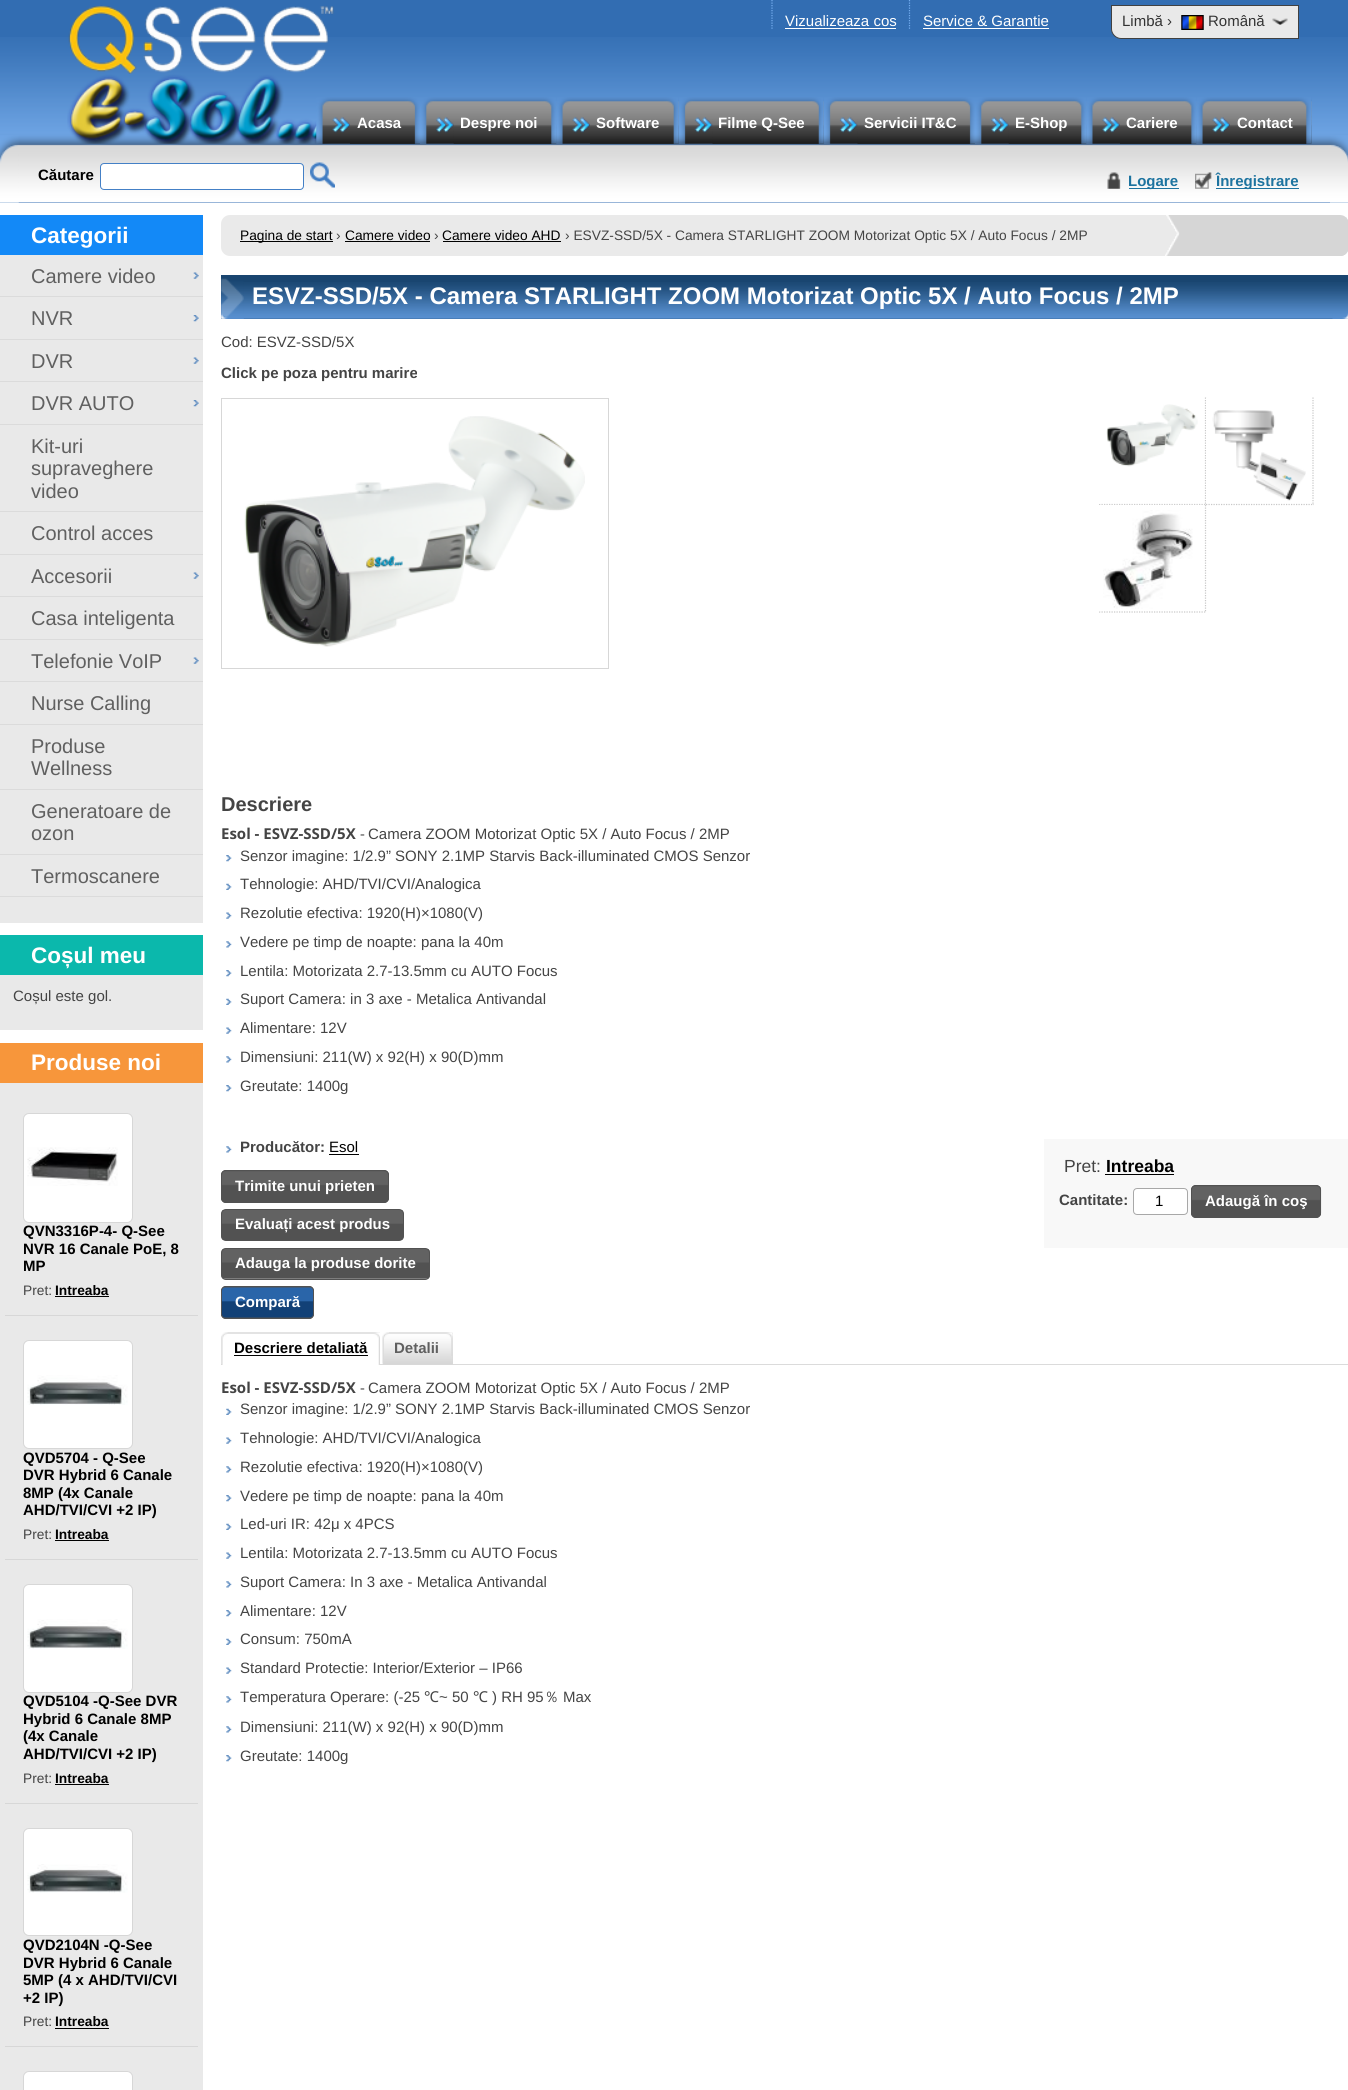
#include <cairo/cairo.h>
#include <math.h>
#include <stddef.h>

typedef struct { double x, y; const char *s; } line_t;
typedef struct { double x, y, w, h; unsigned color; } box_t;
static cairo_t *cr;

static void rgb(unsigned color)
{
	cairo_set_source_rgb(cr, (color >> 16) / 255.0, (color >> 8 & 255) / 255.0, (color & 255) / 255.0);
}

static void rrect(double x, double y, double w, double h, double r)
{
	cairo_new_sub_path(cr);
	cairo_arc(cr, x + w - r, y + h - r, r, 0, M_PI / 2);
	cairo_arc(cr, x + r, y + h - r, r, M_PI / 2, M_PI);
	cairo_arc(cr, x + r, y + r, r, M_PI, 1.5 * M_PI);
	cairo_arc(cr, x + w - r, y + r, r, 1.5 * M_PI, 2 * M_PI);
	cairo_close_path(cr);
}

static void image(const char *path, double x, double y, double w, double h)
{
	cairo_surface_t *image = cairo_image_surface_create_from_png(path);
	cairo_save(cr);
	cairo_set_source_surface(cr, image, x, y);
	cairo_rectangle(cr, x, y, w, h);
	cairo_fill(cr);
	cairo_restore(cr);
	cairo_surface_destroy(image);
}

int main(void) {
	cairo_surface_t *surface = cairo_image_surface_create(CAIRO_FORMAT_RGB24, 1348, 2090);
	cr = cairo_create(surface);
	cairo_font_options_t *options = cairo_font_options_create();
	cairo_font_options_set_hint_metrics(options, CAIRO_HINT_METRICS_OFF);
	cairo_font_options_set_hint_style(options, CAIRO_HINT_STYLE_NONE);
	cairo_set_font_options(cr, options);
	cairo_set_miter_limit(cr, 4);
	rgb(0xffffff);
	cairo_paint(cr);
	rgb(0x326db2);
	cairo_rectangle(cr, 0, 0, 1348, 203);
	cairo_fill(cr);
	image("img/1.png", 0, 37, 1348, 166);
	image("img/2.png", 0, 135, 19, 68);
	image("img/3.png", 1330, 135, 18, 68);
	image("img/4.png", 67, 5, 267, 139);
	cairo_new_path(cr);
	cairo_move_to(cr, 772, 0);
	cairo_line_to(cr, 772, 30);
	rgb(0x74adf0);
	cairo_set_line_width(cr, 1.2);
	cairo_set_dash(cr, (double[]){1.25, 1.25}, 2, 0);
	cairo_stroke(cr);
	rgb(0xffffff);
	cairo_rectangle(cr, 785, 28, 111, 1);
	cairo_fill(cr);
	cairo_new_path(cr);
	cairo_move_to(cr, 909.5, 0);
	cairo_line_to(cr, 909.5, 30);
	rgb(0x74adf0);
	cairo_stroke(cr);
	rgb(0xffffff);
	cairo_rectangle(cr, 923, 28, 126, 1);
	cairo_fill(cr);
	rgb(0xe9e9e9);
	cairo_new_path(cr);
	cairo_move_to(cr, 1111.5, 5.5);
	cairo_line_to(cr, 1298.5, 5.5);
	cairo_line_to(cr, 1298.5, 38.5);
	cairo_line_to(cr, 1121, 38.5);
	cairo_curve_to(cr, 1116, 38.5, 1111.5, 34, 1111.5, 29);
	cairo_close_path(cr);
	cairo_fill_preserve(cr);
	rgb(0x404040);
	cairo_set_line_width(cr, 1);
	cairo_set_dash(cr, NULL, 0, 0);
	cairo_stroke(cr);
	image("img/5.png", 1272, 18, 16, 7);
	image("img/6.png", 1181, 15, 23, 15);
	image("img/7.png", 316, 97, 104, 47);
	image("img/8.png", 350, 97, 70, 47);
	image("img/9.png", 420, 97, 137, 47);
	image("img/10.png", 453, 97, 104, 47);
	image("img/11.png", 556, 97, 123, 47);
	image("img/12.png", 590, 97, 89, 47);
	image("img/13.png", 678, 97, 146, 47);
	image("img/14.png", 712, 97, 112, 47);
	image("img/15.png", 823, 97, 152, 47);
	image("img/16.png", 857, 97, 118, 47);
	image("img/17.png", 975, 97, 112, 47);
	image("img/18.png", 1008, 97, 79, 47);
	image("img/19.png", 1086, 97, 111, 47);
	image("img/20.png", 1120, 97, 77, 47);
	image("img/21.png", 1196, 97, 116, 47);
	image("img/22.png", 1230, 97, 82, 47);
	rgb(0xffffff);
	rrect(100.5, 163.5, 203, 26, 3.5);
	cairo_fill_preserve(cr);
	rgb(0x4480c6);
	cairo_stroke(cr);
	image("img/23.png", 310, 162, 25, 26);
	image("img/24.png", 1107, 172, 14, 17);
	rgb(0x1d739f);
	cairo_rectangle(cr, 1129, 188, 50, 1);
	cairo_fill(cr);
	image("img/25.png", 1195, 172, 17, 17);
	{
		static const box_t items[] = {
			{1216, 188, 83, 1, 0x1d739f},
			{0, 255, 203, 668, 0xe9e9e9},
			{0, 215, 203, 40, 0x1389f7},
			{0, 296, 203, 1, 0xdbdbdb},
		};
		for (size_t i = 0; i < sizeof items / sizeof *items; i++) {
			rgb(items[i].color);
			cairo_rectangle(cr, items[i].x, items[i].y, items[i].w, items[i].h);
			cairo_fill(cr);
		}
	}
	image("img/26.png", 193, 272, 6, 7);
	cairo_rectangle(cr, 0, 339, 203, 1);
	cairo_fill(cr);
	image("img/27.png", 193, 315, 6, 7);
	cairo_rectangle(cr, 0, 381, 203, 1);
	cairo_fill(cr);
	image("img/26.png", 193, 357, 6, 7);
	cairo_rectangle(cr, 0, 424, 203, 1);
	cairo_fill(cr);
	image("img/27.png", 193, 400, 6, 7);
	{
		static const box_t items[] = {
			{0, 511, 203, 1, 0xdbdbdb},
			{0, 554, 203, 1, 0xdbdbdb},
			{0, 596, 203, 1, 0xdbdbdb},
		};
		for (size_t i = 0; i < sizeof items / sizeof *items; i++) {
			rgb(items[i].color);
			cairo_rectangle(cr, items[i].x, items[i].y, items[i].w, items[i].h);
			cairo_fill(cr);
		}
	}
	image("img/26.png", 193, 572, 6, 7);
	cairo_rectangle(cr, 0, 639, 203, 1);
	cairo_fill(cr);
	cairo_rectangle(cr, 0, 681, 203, 1);
	cairo_fill(cr);
	image("img/26.png", 193, 657, 6, 7);
	{
		static const box_t items[] = {
			{0, 724, 203, 1, 0xdbdbdb},
			{0, 789, 203, 1, 0xdbdbdb},
			{0, 854, 203, 1, 0xdbdbdb},
			{0, 896, 203, 1, 0xdbdbdb},
			{0, 975, 203, 55, 0xe9e9e9},
			{0, 935, 203, 40, 0x0bb8ac},
			{0, 1083, 203, 1007, 0xe9e9e9},
			{0, 1043, 203, 40, 0xf7963b},
			{5, 1315, 193, 1, 0xd7d7d7},
		};
		for (size_t i = 0; i < sizeof items / sizeof *items; i++) {
			rgb(items[i].color);
			cairo_rectangle(cr, items[i].x, items[i].y, items[i].w, items[i].h);
			cairo_fill(cr);
		}
	}
	rgb(0xffffff);
	rrect(23.5, 1113.5, 109, 109, 5.5);
	cairo_fill_preserve(cr);
	rgb(0xd7d7d7);
	cairo_stroke(cr);
	image("img/28.png", 27, 1147, 91, 39);
	rgb(0x000000);
	cairo_rectangle(cr, 55, 1296, 54, 1);
	cairo_fill(cr);
	rgb(0xd7d7d7);
	cairo_rectangle(cr, 5, 1559, 193, 1);
	cairo_fill(cr);
	rgb(0xffffff);
	rrect(23.5, 1340.5, 109, 108, 5.5);
	cairo_fill_preserve(cr);
	rgb(0xd7d7d7);
	cairo_stroke(cr);
	image("img/29.png", 27, 1375, 101, 30);
	rgb(0x000000);
	cairo_rectangle(cr, 55, 1540, 54, 1);
	cairo_fill(cr);
	rgb(0xd7d7d7);
	cairo_rectangle(cr, 5, 1803, 193, 1);
	cairo_fill(cr);
	rgb(0xffffff);
	rrect(23.5, 1584.5, 109, 108, 5.5);
	cairo_fill_preserve(cr);
	rgb(0xd7d7d7);
	cairo_stroke(cr);
	image("img/30.png", 27, 1619, 101, 30);
	rgb(0x000000);
	cairo_rectangle(cr, 55, 1784, 54, 1);
	cairo_fill(cr);
	rgb(0xd7d7d7);
	cairo_rectangle(cr, 5, 2046, 193, 1);
	cairo_fill(cr);
	rgb(0xffffff);
	rrect(23.5, 1828.5, 109, 107, 5.5);
	cairo_fill_preserve(cr);
	rgb(0xd7d7d7);
	cairo_stroke(cr);
	image("img/31.png", 27, 1864, 101, 29);
	rgb(0x000000);
	cairo_rectangle(cr, 55, 2028, 54, 1);
	cairo_fill(cr);
	rgb(0xffffff);
	rrect(23.5, 2071.5, 109, 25, 5.5);
	cairo_fill_preserve(cr);
	rgb(0xd7d7d7);
	cairo_stroke(cr);
	rgb(0xeaeaea);
	rrect(221, 215, 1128, 41, 9);
	cairo_fill(cr);
	image("img/32.png", 1165, 215, 183, 41);
	{
		static const box_t items[] = {
			{240, 241, 93, 1, 0x000000},
			{345, 241, 85, 1, 0x000000},
			{443, 241, 118, 1, 0x000000},
			{221, 275, 1127, 44, 0x194570},
		};
		for (size_t i = 0; i < sizeof items / sizeof *items; i++) {
			rgb(items[i].color);
			cairo_rectangle(cr, items[i].x, items[i].y, items[i].w, items[i].h);
			cairo_fill(cr);
		}
	}
	image("img/33.png", 221, 282, 1127, 37);
	image("img/34.png", 221, 278, 23, 41);
	image("img/35.png", 1332, 313, 16, 6);
	cairo_rectangle(cr, 221.5, 398.5, 387, 270);
	rgb(0xd7d7d7);
	cairo_stroke(cr);
	image("img/36.png", 244, 416, 341, 231);
	cairo_new_path(cr);
	cairo_move_to(cr, 1205.5, 397.5);
	cairo_line_to(cr, 1205.5, 505);
	rgb(0xc8c8c8);
	cairo_set_line_width(cr, 1.2);
	cairo_set_dash(cr, (double[]){1.25, 1.25}, 2, 0);
	cairo_stroke(cr);
	cairo_new_path(cr);
	cairo_move_to(cr, 1099, 504.5);
	cairo_line_to(cr, 1206, 504.5);
	cairo_stroke(cr);
	cairo_new_path(cr);
	cairo_move_to(cr, 1099.5, 397.5);
	cairo_line_to(cr, 1099.5, 505);
	rgb(0xffffff);
	cairo_stroke(cr);
	image("img/37.png", 1106, 404, 92, 63);
	cairo_rectangle(cr, 1206, 398, 1, 106);
	cairo_fill(cr);
	cairo_new_path(cr);
	cairo_move_to(cr, 1313, 397.5);
	cairo_line_to(cr, 1313, 505);
	rgb(0xc8c8c8);
	cairo_stroke(cr);
	cairo_new_path(cr);
	cairo_move_to(cr, 1206, 504.5);
	cairo_line_to(cr, 1314, 504.5);
	cairo_stroke(cr);
	image("img/38.png", 1212, 410, 94, 91);
	rgb(0xffffff);
	cairo_rectangle(cr, 1099, 505, 106, 1);
	cairo_fill(cr);
	cairo_new_path(cr);
	cairo_move_to(cr, 1099, 505.5);
	cairo_line_to(cr, 1206, 505.5);
	cairo_stroke(cr);
	cairo_new_path(cr);
	cairo_move_to(cr, 1205.5, 505);
	cairo_line_to(cr, 1205.5, 612.5);
	rgb(0xc8c8c8);
	cairo_stroke(cr);
	cairo_new_path(cr);
	cairo_move_to(cr, 1099, 612);
	cairo_line_to(cr, 1206, 612);
	cairo_stroke(cr);
	cairo_new_path(cr);
	cairo_move_to(cr, 1099.5, 505);
	cairo_line_to(cr, 1099.5, 612.5);
	rgb(0xffffff);
	cairo_stroke(cr);
	image("img/39.png", 1103, 510, 90, 99);
	image("img/40.png", 226, 855, 6, 7);
	image("img/41.png", 226, 883, 6, 7);
	image("img/42.png", 226, 912, 6, 7);
	image("img/43.png", 226, 941, 6, 7);
	image("img/40.png", 226, 970, 6, 7);
	image("img/41.png", 226, 998, 6, 7);
	image("img/42.png", 226, 1027, 6, 7);
	image("img/43.png", 226, 1056, 6, 7);
	image("img/40.png", 226, 1085, 6, 7);
	image("img/43.png", 226, 1146, 6, 7);
	rgb(0x000000);
	cairo_rectangle(cr, 329, 1154, 30, 1);
	cairo_fill(cr);
	rgb(0x525252);
	rrect(221, 1170, 168, 33, 5);
	cairo_fill(cr);
	image("img/44.png", 221, 1171, 168, 29);
	rrect(221.5, 1170.5, 167, 32, 4.5);
	cairo_set_line_width(cr, 1);
	cairo_set_dash(cr, NULL, 0, 0);
	cairo_stroke(cr);
	image("img/45.png", 221, 1210, 183, 30);
	rrect(221.5, 1209.5, 182, 31, 4.5);
	cairo_stroke(cr);
	image("img/46.png", 221, 1248, 209, 31);
	rrect(221.5, 1248.5, 208, 31, 4.5);
	cairo_stroke(cr);
	rrect(221, 1286, 93, 33, 5);
	cairo_fill(cr);
	image("img/47.png", 221, 1287, 93, 31);
	rrect(221.5, 1286.5, 92, 32, 4.5);
	cairo_stroke(cr);
	rgb(0xf8f8f8);
	cairo_rectangle(cr, 1044, 1139, 304, 109);
	cairo_fill(cr);
	rgb(0x000000);
	cairo_rectangle(cr, 1105, 1174, 69, 1);
	cairo_fill(cr);
	rgb(0xffffff);
	rrect(1133.5, 1188.5, 54, 26, 3.5);
	cairo_fill_preserve(cr);
	rgb(0xa8a8a8);
	cairo_stroke(cr);
	rgb(0x525252);
	rrect(1191, 1185, 130, 33, 5);
	cairo_fill(cr);
	image("img/48.png", 1191, 1186, 131, 31);
	rrect(1191.5, 1185.5, 129, 32, 4.5);
	cairo_stroke(cr);
	rgb(0xdbdbdb);
	cairo_rectangle(cr, 221, 1364, 1127, 1);
	cairo_fill(cr);
	image("img/49.png", 221, 1332, 159, 33);
	image("img/50.png", 227, 1332, 153, 33);
	rgb(0x000000);
	cairo_rectangle(cr, 234, 1355, 134, 1);
	cairo_fill(cr);
	rgb(0xd8d8d8);
	cairo_rectangle(cr, 383, 1333, 70, 32);
	cairo_fill(cr);
	image("img/51.png", 382, 1332, 71, 32);
	image("img/52.png", 389, 1332, 64, 24);
	image("img/41.png", 226, 1408, 6, 7);
	image("img/42.png", 226, 1437, 6, 7);
	image("img/43.png", 226, 1466, 6, 7);
	image("img/40.png", 226, 1495, 6, 7);
	image("img/41.png", 226, 1523, 6, 7);
	image("img/42.png", 226, 1552, 6, 7);
	image("img/43.png", 226, 1581, 6, 7);
	image("img/40.png", 226, 1610, 6, 7);
	image("img/41.png", 226, 1638, 6, 7);
	image("img/42.png", 226, 1667, 6, 7);
	image("img/43.png", 226, 1696, 6, 7);
	image("img/43.png", 226, 1726, 6, 7);
	image("img/40.png", 226, 1755, 6, 7);
	cairo_select_font_face(cr, "Liberation Sans", CAIRO_FONT_SLANT_NORMAL, CAIRO_FONT_WEIGHT_NORMAL);
	cairo_set_font_size(cr, 15);
	rgb(0xffffff);
	cairo_move_to(cr, 785, 26);
	cairo_show_text(cr, "Vizualizeaza cos");
	cairo_move_to(cr, 923, 26);
	cairo_show_text(cr, "Service & Garantie");
	rgb(0x333333);
	cairo_move_to(cr, 1122, 26);
	cairo_show_text(cr, "Limbă ›");
	cairo_move_to(cr, 1208, 26);
	cairo_show_text(cr, "Română");
	cairo_select_font_face(cr, "Liberation Sans", CAIRO_FONT_SLANT_NORMAL, CAIRO_FONT_WEIGHT_BOLD);
	rgb(0xffffff);
	{
		static const line_t items[] = {
			{357, 128, "Acasa"},
			{460, 128, "Despre noi"},
			{596, 128, "Software"},
			{718, 128, "Filme Q-See"},
			{864, 128, "Servicii IT&C"},
			{1015, 128, "E-Shop"},
			{1126, 128, "Cariere"},
			{1237, 128, "Contact"},
		};
		for (size_t i = 0; i < sizeof items / sizeof *items; i++) {
			cairo_move_to(cr, items[i].x, items[i].y);
			cairo_show_text(cr, items[i].s);
		}
	}
	rgb(0x000000);
	cairo_move_to(cr, 38, 180);
	cairo_show_text(cr, "Căutare");
	rgb(0x1d739f);
	cairo_move_to(cr, 1128, 186);
	cairo_show_text(cr, "Logare");
	cairo_move_to(cr, 1216, 186);
	cairo_show_text(cr, "Înregistrare");
	cairo_set_font_size(cr, 22.5);
	rgb(0xffffff);
	cairo_move_to(cr, 31, 243);
	cairo_show_text(cr, "Categorii");
	cairo_select_font_face(cr, "Liberation Sans", CAIRO_FONT_SLANT_NORMAL, CAIRO_FONT_WEIGHT_NORMAL);
	cairo_set_font_size(cr, 20);
	rgb(0x606060);
	{
		static const line_t items[] = {
			{31, 283, "Camere video"},
			{31, 325, "NVR"},
			{31, 368, "DVR"},
			{31, 410, "DVR AUTO"},
			{31, 453, "Kit-uri"},
			{31, 475, "supraveghere"},
			{31, 498, "video"},
			{31, 540, "Control acces"},
			{31, 583, "Accesorii"},
			{31, 625, "Casa inteligenta"},
			{31, 668, "Telefonie VoIP"},
			{31, 710, "Nurse Calling"},
			{31, 753, "Produse"},
			{31, 775, "Wellness"},
			{31, 818, "Generatoare de"},
			{31, 840, "ozon"},
			{31, 883, "Termoscanere"},
		};
		for (size_t i = 0; i < sizeof items / sizeof *items; i++) {
			cairo_move_to(cr, items[i].x, items[i].y);
			cairo_show_text(cr, items[i].s);
		}
	}
	cairo_select_font_face(cr, "Liberation Sans", CAIRO_FONT_SLANT_NORMAL, CAIRO_FONT_WEIGHT_BOLD);
	cairo_set_font_size(cr, 22.5);
	rgb(0xffffff);
	cairo_move_to(cr, 31, 963);
	cairo_show_text(cr, "Coșul meu");
	cairo_select_font_face(cr, "Liberation Sans", CAIRO_FONT_SLANT_NORMAL, CAIRO_FONT_WEIGHT_NORMAL);
	cairo_set_font_size(cr, 15);
	rgb(0x444444);
	cairo_move_to(cr, 13, 1001);
	cairo_show_text(cr, "Coșul este gol.");
	cairo_select_font_face(cr, "Liberation Sans", CAIRO_FONT_SLANT_NORMAL, CAIRO_FONT_WEIGHT_BOLD);
	cairo_set_font_size(cr, 22.5);
	rgb(0xffffff);
	cairo_move_to(cr, 31, 1070);
	cairo_show_text(cr, "Produse noi");
	cairo_set_font_size(cr, 15);
	rgb(0x000000);
	{
		static const line_t items[] = {
			{23, 1236, "QVN3316P-4- Q-See"},
			{23, 1254, "NVR 16 Canale PoE, 8"},
			{23, 1271, "MP"},
		};
		for (size_t i = 0; i < sizeof items / sizeof *items; i++) {
			cairo_move_to(cr, items[i].x, items[i].y);
			cairo_show_text(cr, items[i].s);
		}
	}
	cairo_select_font_face(cr, "Liberation Sans", CAIRO_FONT_SLANT_NORMAL, CAIRO_FONT_WEIGHT_NORMAL);
	cairo_set_font_size(cr, 13.75);
	rgb(0x444444);
	cairo_move_to(cr, 23, 1295);
	cairo_show_text(cr, "Pret:");
	cairo_select_font_face(cr, "Liberation Sans", CAIRO_FONT_SLANT_NORMAL, CAIRO_FONT_WEIGHT_BOLD);
	rgb(0x000000);
	cairo_move_to(cr, 55, 1295);
	cairo_show_text(cr, "Intreaba");
	cairo_set_font_size(cr, 15);
	{
		static const line_t items[] = {
			{23, 1463, "QVD5704 - Q-See"},
			{23, 1480, "DVR Hybrid 6 Canale"},
			{23, 1498, "8MP (4x Canale"},
			{23, 1515, "AHD/TVI/CVI +2 IP)"},
		};
		for (size_t i = 0; i < sizeof items / sizeof *items; i++) {
			cairo_move_to(cr, items[i].x, items[i].y);
			cairo_show_text(cr, items[i].s);
		}
	}
	cairo_select_font_face(cr, "Liberation Sans", CAIRO_FONT_SLANT_NORMAL, CAIRO_FONT_WEIGHT_NORMAL);
	cairo_set_font_size(cr, 13.75);
	rgb(0x444444);
	cairo_move_to(cr, 23, 1539);
	cairo_show_text(cr, "Pret:");
	cairo_select_font_face(cr, "Liberation Sans", CAIRO_FONT_SLANT_NORMAL, CAIRO_FONT_WEIGHT_BOLD);
	rgb(0x000000);
	cairo_move_to(cr, 55, 1539);
	cairo_show_text(cr, "Intreaba");
	cairo_set_font_size(cr, 15);
	{
		static const line_t items[] = {
			{23, 1706, "QVD5104 -Q-See DVR"},
			{23, 1724, "Hybrid 6 Canale 8MP"},
			{23, 1741, "(4x Canale"},
			{23, 1759, "AHD/TVI/CVI +2 IP)"},
		};
		for (size_t i = 0; i < sizeof items / sizeof *items; i++) {
			cairo_move_to(cr, items[i].x, items[i].y);
			cairo_show_text(cr, items[i].s);
		}
	}
	cairo_select_font_face(cr, "Liberation Sans", CAIRO_FONT_SLANT_NORMAL, CAIRO_FONT_WEIGHT_NORMAL);
	cairo_set_font_size(cr, 13.75);
	rgb(0x444444);
	cairo_move_to(cr, 23, 1783);
	cairo_show_text(cr, "Pret:");
	cairo_select_font_face(cr, "Liberation Sans", CAIRO_FONT_SLANT_NORMAL, CAIRO_FONT_WEIGHT_BOLD);
	rgb(0x000000);
	cairo_move_to(cr, 55, 1783);
	cairo_show_text(cr, "Intreaba");
	cairo_set_font_size(cr, 15);
	{
		static const line_t items[] = {
			{23, 1950, "QVD2104N -Q-See"},
			{23, 1968, "DVR Hybrid 6 Canale"},
			{23, 1985, "5MP (4 x AHD/TVI/CVI"},
			{23, 2003, "+2 IP)"},
		};
		for (size_t i = 0; i < sizeof items / sizeof *items; i++) {
			cairo_move_to(cr, items[i].x, items[i].y);
			cairo_show_text(cr, items[i].s);
		}
	}
	cairo_select_font_face(cr, "Liberation Sans", CAIRO_FONT_SLANT_NORMAL, CAIRO_FONT_WEIGHT_NORMAL);
	cairo_set_font_size(cr, 13.75);
	rgb(0x444444);
	cairo_move_to(cr, 23, 2026);
	cairo_show_text(cr, "Pret:");
	cairo_select_font_face(cr, "Liberation Sans", CAIRO_FONT_SLANT_NORMAL, CAIRO_FONT_WEIGHT_BOLD);
	rgb(0x000000);
	cairo_move_to(cr, 55, 2026);
	cairo_show_text(cr, "Intreaba");
	cairo_select_font_face(cr, "Liberation Sans", CAIRO_FONT_SLANT_NORMAL, CAIRO_FONT_WEIGHT_NORMAL);
	cairo_move_to(cr, 240, 240);
	cairo_show_text(cr, "Pagina de start");
	rgb(0x444444);
	cairo_move_to(cr, 336, 240);
	cairo_show_text(cr, "›");
	rgb(0x000000);
	cairo_move_to(cr, 345, 240);
	cairo_show_text(cr, "Camere video");
	rgb(0x444444);
	cairo_move_to(cr, 434, 240);
	cairo_show_text(cr, "›");
	rgb(0x000000);
	cairo_move_to(cr, 442, 240);
	cairo_show_text(cr, "Camere video AHD");
	rgb(0x444444);
	cairo_move_to(cr, 565, 240);
	cairo_show_text(cr, "› ESVZ-SSD/5X - Camera STARLIGHT ZOOM Motorizat Optic 5X / Auto Focus / 2MP");
	cairo_select_font_face(cr, "Liberation Sans", CAIRO_FONT_SLANT_NORMAL, CAIRO_FONT_WEIGHT_BOLD);
	cairo_set_font_size(cr, 24);
	rgb(0xffffff);
	cairo_move_to(cr, 252, 304);
	cairo_show_text(cr, "ESVZ-SSD/5X - Camera STARLIGHT ZOOM Motorizat Optic 5X / Auto Focus / 2MP");
	cairo_select_font_face(cr, "Liberation Sans", CAIRO_FONT_SLANT_NORMAL, CAIRO_FONT_WEIGHT_NORMAL);
	cairo_set_font_size(cr, 15);
	rgb(0x444444);
	cairo_move_to(cr, 221, 347);
	cairo_show_text(cr, "Cod: ESVZ-SSD/5X");
	cairo_select_font_face(cr, "Liberation Sans", CAIRO_FONT_SLANT_NORMAL, CAIRO_FONT_WEIGHT_BOLD);
	cairo_move_to(cr, 221, 378);
	cairo_show_text(cr, "Click pe poza pentru marire");
	cairo_set_font_size(cr, 20);
	cairo_move_to(cr, 221, 811);
	cairo_show_text(cr, "Descriere");
	cairo_select_font_face(cr, "Open Sans", CAIRO_FONT_SLANT_NORMAL, CAIRO_FONT_WEIGHT_BOLD);
	cairo_set_font_size(cr, 15);
	cairo_move_to(cr, 221, 839);
	cairo_show_text(cr, "Esol - ESVZ-SSD/5X");
	cairo_select_font_face(cr, "Open Sans", CAIRO_FONT_SLANT_NORMAL, CAIRO_FONT_WEIGHT_NORMAL);
	cairo_move_to(cr, 360, 839);
	cairo_show_text(cr, "-");
	cairo_select_font_face(cr, "Liberation Sans", CAIRO_FONT_SLANT_NORMAL, CAIRO_FONT_WEIGHT_NORMAL);
	{
		static const line_t items[] = {
			{368, 839, "Camera ZOOM Motorizat Optic 5X / Auto Focus / 2MP"},
			{240, 861, "Senzor imagine: 1/2.9” SONY 2.1MP Starvis Back-illuminated CMOS Senzor"},
			{240, 889, "Tehnologie: AHD/TVI/CVI/Analogica"},
			{240, 918, "Rezolutie efectiva: 1920(H)×1080(V)"},
			{240, 947, "Vedere pe timp de noapte: pana la 40m"},
			{240, 976, "Lentila: Motorizata 2.7-13.5mm cu AUTO Focus"},
			{240, 1004, "Suport Camera: in 3 axe - Metalica Antivandal"},
			{240, 1033, "Alimentare: 12V"},
			{240, 1062, "Dimensiuni: 211(W) x 92(H) x 90(D)mm"},
			{240, 1091, "Greutate: 1400g"},
		};
		for (size_t i = 0; i < sizeof items / sizeof *items; i++) {
			cairo_move_to(cr, items[i].x, items[i].y);
			cairo_show_text(cr, items[i].s);
		}
	}
	cairo_select_font_face(cr, "Liberation Sans", CAIRO_FONT_SLANT_NORMAL, CAIRO_FONT_WEIGHT_BOLD);
	cairo_move_to(cr, 240, 1152);
	cairo_show_text(cr, "Producător:");
	cairo_select_font_face(cr, "Liberation Sans", CAIRO_FONT_SLANT_NORMAL, CAIRO_FONT_WEIGHT_NORMAL);
	rgb(0x000000);
	cairo_move_to(cr, 329, 1152);
	cairo_show_text(cr, "Esol");
	cairo_select_font_face(cr, "Liberation Sans", CAIRO_FONT_SLANT_NORMAL, CAIRO_FONT_WEIGHT_BOLD);
	rgb(0xffffff);
	{
		static const line_t items[] = {
			{235, 1191, "Trimite unui prieten"},
			{235, 1229, "Evaluați acest produs"},
			{235, 1268, "Adauga la produse dorite"},
			{235, 1307, "Compară"},
		};
		for (size_t i = 0; i < sizeof items / sizeof *items; i++) {
			cairo_move_to(cr, items[i].x, items[i].y);
			cairo_show_text(cr, items[i].s);
		}
	}
	cairo_select_font_face(cr, "Liberation Sans", CAIRO_FONT_SLANT_NORMAL, CAIRO_FONT_WEIGHT_NORMAL);
	cairo_set_font_size(cr, 17.5);
	rgb(0x444444);
	cairo_move_to(cr, 1064, 1172);
	cairo_show_text(cr, "Pret:");
	cairo_select_font_face(cr, "Liberation Sans", CAIRO_FONT_SLANT_NORMAL, CAIRO_FONT_WEIGHT_BOLD);
	rgb(0x000000);
	cairo_move_to(cr, 1106, 1172);
	cairo_show_text(cr, "Intreaba");
	cairo_set_font_size(cr, 15);
	rgb(0x444444);
	cairo_move_to(cr, 1059, 1205);
	cairo_show_text(cr, "Cantitate:");
	cairo_select_font_face(cr, "Liberation Sans", CAIRO_FONT_SLANT_NORMAL, CAIRO_FONT_WEIGHT_NORMAL);
	rgb(0x000000);
	cairo_move_to(cr, 1155, 1206);
	cairo_show_text(cr, "1");
	cairo_select_font_face(cr, "Liberation Sans", CAIRO_FONT_SLANT_NORMAL, CAIRO_FONT_WEIGHT_BOLD);
	rgb(0xffffff);
	cairo_move_to(cr, 1205, 1206);
	cairo_show_text(cr, "Adaugă în coş");
	rgb(0x000000);
	cairo_move_to(cr, 234, 1353);
	cairo_show_text(cr, "Descriere detaliată");
	rgb(0x606060);
	cairo_move_to(cr, 394, 1353);
	cairo_show_text(cr, "Detalii");
	cairo_select_font_face(cr, "Open Sans", CAIRO_FONT_SLANT_NORMAL, CAIRO_FONT_WEIGHT_BOLD);
	rgb(0x444444);
	cairo_move_to(cr, 221, 1393);
	cairo_show_text(cr, "Esol - ESVZ-SSD/5X");
	cairo_select_font_face(cr, "Open Sans", CAIRO_FONT_SLANT_NORMAL, CAIRO_FONT_WEIGHT_NORMAL);
	cairo_move_to(cr, 360, 1393);
	cairo_show_text(cr, "-");
	cairo_select_font_face(cr, "Liberation Sans", CAIRO_FONT_SLANT_NORMAL, CAIRO_FONT_WEIGHT_NORMAL);
	{
		static const line_t items[] = {
			{368, 1393, "Camera ZOOM Motorizat Optic 5X / Auto Focus / 2MP"},
			{240, 1414, "Senzor imagine: 1/2.9” SONY 2.1MP Starvis Back-illuminated CMOS Senzor"},
			{240, 1443, "Tehnologie: AHD/TVI/CVI/Analogica"},
			{240, 1472, "Rezolutie efectiva: 1920(H)×1080(V)"},
			{240, 1501, "Vedere pe timp de noapte: pana la 40m"},
			{240, 1529, "Led-uri IR: 42μ x 4PCS"},
			{240, 1558, "Lentila: Motorizata 2.7-13.5mm cu AUTO Focus"},
			{240, 1587, "Suport Camera: In 3 axe - Metalica Antivandal"},
			{240, 1616, "Alimentare: 12V"},
			{240, 1644, "Consum: 750mA"},
			{240, 1673, "Standard Protectie: Interior/Exterior – IP66"},
			{240, 1702, "Temperatura Operare: (-25"},
		};
		for (size_t i = 0; i < sizeof items / sizeof *items; i++) {
			cairo_move_to(cr, items[i].x, items[i].y);
			cairo_show_text(cr, items[i].s);
		}
	}
	cairo_select_font_face(cr, "Noto Sans", CAIRO_FONT_SLANT_NORMAL, CAIRO_FONT_WEIGHT_NORMAL);
	cairo_move_to(cr, 424, 1702);
	cairo_show_text(cr, "℃");
	cairo_select_font_face(cr, "Liberation Sans", CAIRO_FONT_SLANT_NORMAL, CAIRO_FONT_WEIGHT_NORMAL);
	cairo_move_to(cr, 439, 1702);
	cairo_show_text(cr, "~ 50");
	cairo_select_font_face(cr, "Noto Sans", CAIRO_FONT_SLANT_NORMAL, CAIRO_FONT_WEIGHT_NORMAL);
	cairo_move_to(cr, 473, 1702);
	cairo_show_text(cr, "℃");
	cairo_select_font_face(cr, "Liberation Sans", CAIRO_FONT_SLANT_NORMAL, CAIRO_FONT_WEIGHT_NORMAL);
	cairo_move_to(cr, 492, 1702);
	cairo_show_text(cr, ") RH 95");
	cairo_select_font_face(cr, "WenQuanYi Zen Hei Medium", CAIRO_FONT_SLANT_NORMAL, CAIRO_FONT_WEIGHT_NORMAL);
	cairo_move_to(cr, 544, 1702);
	cairo_show_text(cr, "％");
	cairo_select_font_face(cr, "Liberation Sans", CAIRO_FONT_SLANT_NORMAL, CAIRO_FONT_WEIGHT_NORMAL);
	{
		static const line_t items[] = {
			{563, 1702, "Max"},
			{240, 1732, "Dimensiuni: 211(W) x 92(H) x 90(D)mm"},
			{240, 1761, "Greutate: 1400g"},
		};
		for (size_t i = 0; i < sizeof items / sizeof *items; i++) {
			cairo_move_to(cr, items[i].x, items[i].y);
			cairo_show_text(cr, items[i].s);
		}
	}
	cairo_surface_write_to_png(surface, "page.png");
	cairo_font_options_destroy(options);
	cairo_destroy(cr);
	cairo_surface_destroy(surface);
	return 0;
}
